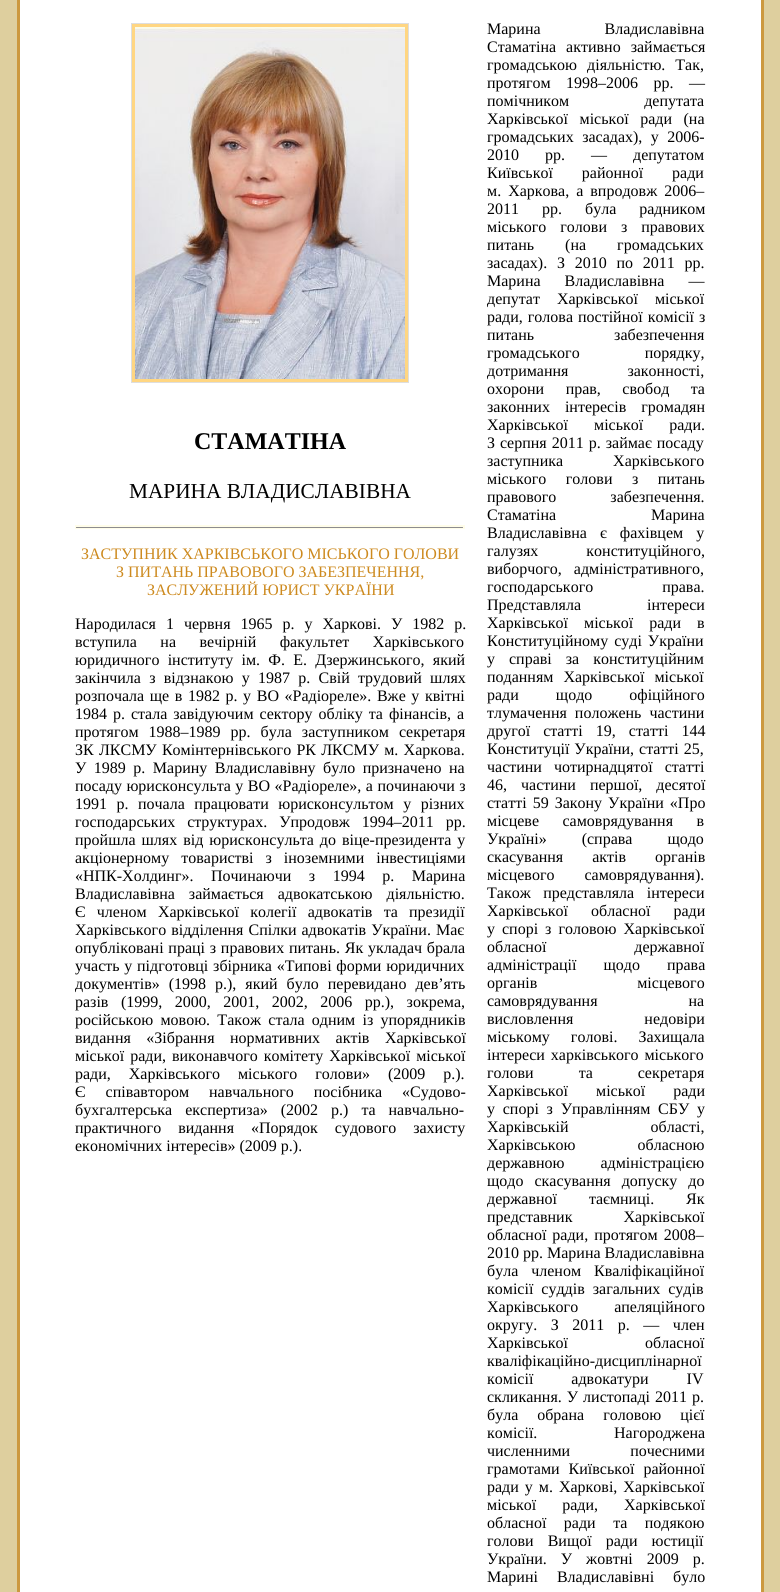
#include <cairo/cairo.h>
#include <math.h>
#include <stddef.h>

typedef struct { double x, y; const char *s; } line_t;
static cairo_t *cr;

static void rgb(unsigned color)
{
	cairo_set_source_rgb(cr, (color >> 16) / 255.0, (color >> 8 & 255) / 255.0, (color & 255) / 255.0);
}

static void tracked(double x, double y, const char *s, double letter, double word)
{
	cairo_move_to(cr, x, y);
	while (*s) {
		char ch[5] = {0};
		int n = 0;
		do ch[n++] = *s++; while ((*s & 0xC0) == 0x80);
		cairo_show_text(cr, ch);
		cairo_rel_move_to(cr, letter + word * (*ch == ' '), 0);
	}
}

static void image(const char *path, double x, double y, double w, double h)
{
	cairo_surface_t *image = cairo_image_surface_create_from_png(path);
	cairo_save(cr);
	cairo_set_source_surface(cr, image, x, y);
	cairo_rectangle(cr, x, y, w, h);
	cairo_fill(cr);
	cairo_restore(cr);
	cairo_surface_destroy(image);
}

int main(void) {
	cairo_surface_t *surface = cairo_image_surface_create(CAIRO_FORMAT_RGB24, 780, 1592);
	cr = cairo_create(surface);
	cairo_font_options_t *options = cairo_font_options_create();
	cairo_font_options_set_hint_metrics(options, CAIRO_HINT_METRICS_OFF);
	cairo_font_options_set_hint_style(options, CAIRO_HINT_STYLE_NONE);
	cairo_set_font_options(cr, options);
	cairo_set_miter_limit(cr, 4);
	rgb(0xdecf9e);
	cairo_paint(cr);
	cairo_rectangle(cr, 18.5, -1.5, 744, 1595);
	rgb(0xcc993f);
	cairo_set_line_width(cr, 3);
	cairo_stroke(cr);
	rgb(0xffffff);
	cairo_rectangle(cr, 20, 0, 741, 1592);
	cairo_fill(cr);
	rgb(0xffd682);
	cairo_rectangle(cr, 131.5, 23.5, 277, 359);
	cairo_fill_preserve(cr);
	rgb(0xdedede);
	cairo_set_line_width(cr, 1);
	cairo_stroke(cr);
	image("img/1.png", 135, 27, 270, 352);
	image("img/2.png", 75, 525, 390, 4);
	cairo_select_font_face(cr, "Liberation Serif", CAIRO_FONT_SLANT_NORMAL, CAIRO_FONT_WEIGHT_BOLD);
	cairo_set_font_size(cr, 24);
	rgb(0x000000);
	cairo_move_to(cr, 194, 449);
	cairo_show_text(cr, "СТАМАТІНА");
	cairo_select_font_face(cr, "Liberation Serif", CAIRO_FONT_SLANT_NORMAL, CAIRO_FONT_WEIGHT_NORMAL);
	cairo_set_font_size(cr, 21.3);
	cairo_move_to(cr, 129, 498);
	cairo_show_text(cr, "МАРИНА ВЛАДИСЛАВІВНА");
	cairo_set_font_size(cr, 16);
	rgb(0xcd8a1f);
	{
		static const line_t items[] = {
			{81, 559, "ЗАСТУПНИК ХАРКІВСЬКОГО МІСЬКОГО ГОЛОВИ"},
			{116, 577, "З ПИТАНЬ ПРАВОВОГО ЗАБЕЗПЕЧЕННЯ,"},
			{147, 595, "ЗАСЛУЖЕНИЙ ЮРИСТ УКРАЇНИ"},
		};
		for (size_t i = 0; i < sizeof items / sizeof *items; i++) {
			cairo_move_to(cr, items[i].x, items[i].y);
			cairo_show_text(cr, items[i].s);
		}
	}
	rgb(0x000000);
	tracked(75, 629, "Народилася 1 червня 1965 р. у Харкові. У 1982 р.", 0, 6);
	tracked(75, 647, "вступила на вечірній факультет Харківського", 0, 19.5);
	tracked(75, 665, "юридичного інституту ім. Ф. Е. Дзержинського, який", 0, 4.25);
	tracked(75, 683, "закінчила з відзнакою у 1987 р. Свій трудовий шлях", 0, 4.25);
	tracked(75, 701, "розпочала ще в 1982 р. у ВО «Радіореле». Вже у квітні", 0, 1.6);
	tracked(75, 719, "1984 р. стала завідуючим сектору обліку та фінансів, а", 0, 2);
	tracked(75, 737, "протягом 1988–1989 рр. була заступником секретаря", 0, 6);
	tracked(75, 755, "ЗК ЛКСМУ Комінтернівського РК ЛКСМУ м. Харкова.", 0, 1.25);
	tracked(75, 773, "У 1989 р. Марину Владиславівну було призначено на", 0, 3.5);
	tracked(75, 791, "посаду юрисконсульта у ВО «Радіореле», а починаючи з", 0, 0.5);
	tracked(75, 809, "1991 р. почала працювати юрисконсультом у різних", 0, 5.5);
	tracked(75, 827, "господарських структурах. Упродовж 1994–2011 рр.", 0, 8);
	tracked(75, 845, "пройшла шлях від юрисконсульта до віце-президента у", 0, 2);
	tracked(75, 863, "акціонерному товаристві з іноземними інвестиціями", 0, 8);
	tracked(75, 881, "«НПК-Холдинг». Починаючи з 1994 р. Марина", 0, 13.5);
	tracked(75, 899, "Владиславівна займається адвокатською діяльністю.", 0, 10);
	tracked(75, 917, "Є членом Харківської колегії адвокатів та президії", 0, 7.25);
	tracked(75, 935, "Харківського відділення Спілки адвокатів України. Має", 0, 1);
	tracked(75, 953, "опубліковані праці з правових питань. Як укладач брала", 0, 0.75);
	tracked(75, 971, "участь у підготовці збірника «Типові форми юридичних", 0, 0.75);
	tracked(75, 989, "документів» (1998 р.), який було перевидано дев’ять", 0, 5);
	tracked(75, 1007, "разів (1999, 2000, 2001, 2002, 2006 рр.), зокрема,", 0, 8.5);
	tracked(75, 1025, "російською мовою. Також стала одним із упорядників", 0, 3.25);
	tracked(75, 1043, "видання «Зібрання нормативних актів Харківської", 0, 11.5);
	tracked(75, 1061, "міської ради, виконавчого комітету Харківської міської", 0, 2);
	tracked(75, 1079, "ради, Харківського міського голови» (2009 р.).", 0, 14);
	tracked(75, 1097, "Є співавтором навчального посібника «Судово-", 0, 16);
	tracked(75, 1115, "бухгалтерська експертиза» (2002 р.) та навчально-", 0, 9);
	tracked(75, 1133, "практичного видання «Порядок судового захисту", 0, 13);
	cairo_move_to(cr, 75, 1151);
	cairo_show_text(cr, "економічних інтересів» (2009 р.).");
	tracked(487, 34, "Марина Владиславівна", 0, 60);
	tracked(487, 52, "Стаматіна активно займається", 0, 6);
	tracked(487, 70, "громадською діяльністю. Так,", 0, 6);
	tracked(487, 88, "протягом 1998–2006 рр. —", 0, 11.5);
	tracked(487, 106, "помічником депутата", 0, 71);
	tracked(487, 124, "Харківської міської ради (на", 0, 7.5);
	tracked(487, 142, "громадських засадах), у 2006-", 0, 4.5);
	tracked(487, 160, "2010 рр. — депутатом", 0, 22);
	tracked(487, 178, "Київської районної ради", 0, 25);
	tracked(487, 196, "м. Харкова, а впродовж 2006–", 0, 3);
	tracked(487, 214, "2011 рр. була радником", 0, 19);
	tracked(487, 232, "міського голови з правових", 0, 10);
	tracked(487, 250, "питань (на громадських", 0, 27);
	tracked(487, 268, "засадах). З 2010 по 2011 рр.", 0, 5.75);
	tracked(487, 286, "Марина Владиславівна —", 0, 20);
	tracked(487, 304, "депутат Харківської міської", 0, 13);
	tracked(487, 322, "ради, голова постійної комісії з", 0, 1);
	tracked(487, 340, "питань забезпечення", 0, 76);
	tracked(487, 358, "громадського порядку,", 0, 61);
	tracked(487, 376, "дотримання законності,", 0, 55);
	tracked(487, 394, "охорони прав, свобод та", 0, 17.5);
	tracked(487, 412, "законних інтересів громадян", 0, 11);
	tracked(487, 430, "Харківської міської ради.", 0, 22);
	tracked(487, 448, "З серпня 2011 р. займає посаду", 0, 1);
	tracked(487, 466, "заступника Харківського", 0, 46);
	tracked(487, 484, "міського голови з питань", 0, 15.5);
	tracked(487, 502, "правового забезпечення.", 0, 50);
	tracked(487, 520, "Стаматіна Марина", 0, 91);
	cairo_move_to(cr, 487, 538);
	cairo_show_text(cr, "Владиславівна");
	tracked(600, 538, "є фахівцем у", 0, 9);
	tracked(487, 556, "галузях конституційного,", 0, 44);
	tracked(487, 574, "виборчого, адміністративного,", 0, 8);
	tracked(487, 592, "господарського права.", 0, 65);
	tracked(487, 610, "Представляла інтереси", 0, 62);
	tracked(487, 628, "Харківської міської ради в", 0, 12);
	tracked(487, 646, "Конституційному суді України", 0, 2);
	tracked(487, 664, "у справі за конституційним", 0, 10);
	tracked(487, 682, "поданням Харківської міської", 0, 6);
	tracked(487, 700, "ради щодо офіційного", 0, 33);
	tracked(487, 718, "тлумачення положень частини", 0, 4);
	tracked(487, 736, "другої статті 19, статті 144", 0, 9);
	tracked(487, 754, "Конституції України, статті 25,", 0, 1);
	tracked(487, 772, "частини чотирнадцятої статті", 0, 8);
	tracked(487, 790, "46, частини першої, десятої", 0, 10);
	tracked(487, 808, "статті 59 Закону України «Про", 0, 2);
	tracked(487, 826, "місцеве самоврядування в", 0, 19.5);
	tracked(487, 844, "Україні» (справа щодо", 0, 31);
	tracked(487, 862, "скасування актів органів", 0, 25);
	tracked(487, 880, "місцевого самоврядування).", 0, 26);
	tracked(487, 898, "Також представляла інтереси", 0, 8.5);
	tracked(487, 916, "Харківської обласної ради", 0, 19);
	tracked(487, 934, "у спорі з головою Харківської", 0, 3);
	tracked(487, 952, "обласної державної", 0, 84);
	tracked(487, 970, "адміністрації щодо права", 0, 23);
	tracked(487, 988, "органів місцевого", 0, 96);
	tracked(487, 1006, "самоврядування на", 0, 87);
	tracked(487, 1024, "висловлення недовіри", 0, 67);
	tracked(487, 1042, "міському голові. Захищала", 0, 17);
	tracked(487, 1060, "інтереси харківського міського", 0, 2);
	tracked(487, 1078, "голови та секретаря", 0, 41);
	tracked(487, 1096, "Харківської міської ради", 0, 24);
	tracked(487, 1114, "у спорі з Управлінням СБУ у", 0, 3.75);
	tracked(487, 1132, "Харківській області,", 0, 78);
	tracked(487, 1150, "Харківською обласною", 0, 58);
	tracked(487, 1168, "державною адміністрацією", 0, 32);
	tracked(487, 1186, "щодо скасування допуску до", 0, 7);
	tracked(487, 1204, "державної таємниці.", 0, 28);
	cairo_move_to(cr, 686, 1204);
	cairo_show_text(cr, "Як");
	tracked(487, 1222, "представник Харківської", 0, 47);
	tracked(487, 1240, "обласної ради, протягом 2008–", 0, 2);
	cairo_move_to(cr, 487, 1258);
	cairo_show_text(cr, "2010 рр. Марина Владиславівна");
	tracked(487, 1276, "була членом Кваліфікаційної", 0, 9);
	tracked(487, 1294, "комісії суддів загальних судів", 0, 4);
	tracked(487, 1312, "Харківського апеляційного", 0, 32);
	tracked(487, 1330, "округу. З 2011 р. — член", 0, 9.5);
	tracked(487, 1348, "Харківської обласної", 0, 73);
	cairo_move_to(cr, 487, 1366);
	cairo_show_text(cr, "кваліфікаційно-дисциплінарної");
	tracked(487, 1384, "комісії адвокатури IV", 0, 34);
	tracked(487, 1402, "скликання. У листопаді 2011 р.", 0, 1);
	tracked(487, 1420, "була обрана головою цієї", 0, 15);
	cairo_move_to(cr, 487, 1438);
	cairo_show_text(cr, "комісії.");
	cairo_move_to(cr, 614, 1438);
	cairo_show_text(cr, "Нагороджена");
	tracked(487, 1456, "численними почесними", 0, 56);
	tracked(487, 1474, "грамотами Київської районної", 0, 5);
	tracked(487, 1492, "ради у м. Харкові, Харківської", 0, 2);
	tracked(487, 1510, "міської ради, Харківської", 0, 22);
	tracked(487, 1528, "обласної ради та подякою", 0, 13.5);
	tracked(487, 1546, "голови Вищої ради юстиції", 0, 10);
	tracked(487, 1564, "України. У жовтні 2009 р.", 0, 10);
	tracked(487, 1582, "Марині Владиславівні було", 0, 15);
	cairo_surface_write_to_png(surface, "page.png");
	cairo_font_options_destroy(options);
	cairo_destroy(cr);
	cairo_surface_destroy(surface);
	return 0;
}
